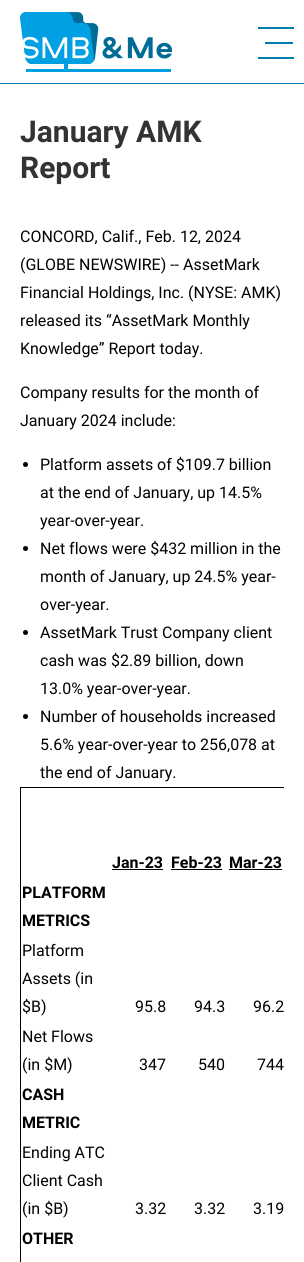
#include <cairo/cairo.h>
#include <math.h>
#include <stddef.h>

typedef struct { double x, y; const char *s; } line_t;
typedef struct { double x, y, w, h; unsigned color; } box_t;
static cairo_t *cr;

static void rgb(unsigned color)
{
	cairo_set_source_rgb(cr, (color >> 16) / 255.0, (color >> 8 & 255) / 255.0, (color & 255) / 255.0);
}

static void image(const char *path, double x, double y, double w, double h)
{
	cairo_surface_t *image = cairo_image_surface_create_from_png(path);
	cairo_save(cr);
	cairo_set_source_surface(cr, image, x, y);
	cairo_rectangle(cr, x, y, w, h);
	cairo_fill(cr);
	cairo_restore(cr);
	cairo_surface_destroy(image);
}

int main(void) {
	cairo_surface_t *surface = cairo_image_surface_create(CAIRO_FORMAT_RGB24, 304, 1262);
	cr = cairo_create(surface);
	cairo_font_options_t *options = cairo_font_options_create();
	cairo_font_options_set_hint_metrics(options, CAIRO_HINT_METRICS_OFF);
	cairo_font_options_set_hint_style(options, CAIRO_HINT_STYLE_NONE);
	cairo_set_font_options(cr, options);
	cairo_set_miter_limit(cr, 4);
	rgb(0xffffff);
	cairo_paint(cr);
	image("img/1.png", 20, 12, 152, 60);
	{
		static const box_t items[] = {
			{258, 27, 36, 2, 0x007eb0},
			{265, 42, 28, 2, 0x007eb0},
			{258, 57, 36, 2, 0x007eb0},
			{0, 83, 304, 1, 0x007eb0},
		};
		for (size_t i = 0; i < sizeof items / sizeof *items; i++) {
			rgb(items[i].color);
			cairo_rectangle(cr, items[i].x, items[i].y, items[i].w, items[i].h);
			cairo_fill(cr);
		}
	}
	rgb(0x000000);
	cairo_arc(cr, 25.5, 464.5, 2.5, 0, 2 * M_PI);
	cairo_fill(cr);
	cairo_arc(cr, 25.5, 548.5, 2.5, 0, 2 * M_PI);
	cairo_fill(cr);
	cairo_arc(cr, 25.5, 632.5, 2.5, 0, 2 * M_PI);
	cairo_fill(cr);
	cairo_arc(cr, 25.5, 716.5, 2.5, 0, 2 * M_PI);
	cairo_fill(cr);
	{
		static const box_t items[] = {
			{20, 787, 264, 1, 0x000000},
			{20, 817, 1, 445, 0x000000},
			{20, 787, 1, 31, 0x000000},
			{112, 869, 51, 1, 0x000000},
			{171, 869, 51, 1, 0x000000},
			{229, 869, 53, 1, 0x000000},
		};
		for (size_t i = 0; i < sizeof items / sizeof *items; i++) {
			rgb(items[i].color);
			cairo_rectangle(cr, items[i].x, items[i].y, items[i].w, items[i].h);
			cairo_fill(cr);
		}
	}
	cairo_select_font_face(cr, "Roboto", CAIRO_FONT_SLANT_NORMAL, CAIRO_FONT_WEIGHT_BOLD);
	cairo_set_font_size(cr, 30);
	rgb(0x333333);
	cairo_move_to(cr, 20, 142);
	cairo_show_text(cr, "January AMK");
	cairo_move_to(cr, 20, 178);
	cairo_show_text(cr, "Report");
	cairo_select_font_face(cr, "Roboto", CAIRO_FONT_SLANT_NORMAL, CAIRO_FONT_WEIGHT_NORMAL);
	cairo_set_font_size(cr, 16);
	rgb(0x000000);
	{
		static const line_t items[] = {
			{20, 242, "CONCORD, Calif., Feb. 12, 2024"},
			{20, 270, "(GLOBE NEWSWIRE) -- AssetMark"},
			{20, 298, "Financial Holdings, Inc. (NYSE: AMK)"},
			{20, 326, "released its “AssetMark Monthly"},
			{20, 354, "Knowledge” Report today."},
			{20, 398, "Company results for the month of"},
			{20, 426, "January 2024 include:"},
			{40, 470, "Platform assets of $109.7 billion"},
			{40, 498, "at the end of January, up 14.5%"},
			{40, 526, "year-over-year."},
			{40, 554, "Net flows were $432 million in the"},
			{40, 582, "month of January, up 24.5% year-"},
			{40, 610, "over-year."},
			{40, 638, "AssetMark Trust Company client"},
			{40, 666, "cash was $2.89 billion, down"},
			{40, 694, "13.0% year-over-year."},
			{40, 722, "Number of households increased"},
			{40, 750, "5.6% year-over-year to 256,078 at"},
			{40, 778, "the end of January."},
		};
		for (size_t i = 0; i < sizeof items / sizeof *items; i++) {
			cairo_move_to(cr, items[i].x, items[i].y);
			cairo_show_text(cr, items[i].s);
		}
	}
	cairo_select_font_face(cr, "Roboto", CAIRO_FONT_SLANT_NORMAL, CAIRO_FONT_WEIGHT_BOLD);
	{
		static const line_t items[] = {
			{112, 868, "Jan-23"},
			{171, 868, "Feb-23"},
			{229, 868, "Mar-23"},
			{22, 898, "PLATFORM"},
			{22, 926, "METRICS"},
		};
		for (size_t i = 0; i < sizeof items / sizeof *items; i++) {
			cairo_move_to(cr, items[i].x, items[i].y);
			cairo_show_text(cr, items[i].s);
		}
	}
	cairo_select_font_face(cr, "Roboto", CAIRO_FONT_SLANT_NORMAL, CAIRO_FONT_WEIGHT_NORMAL);
	{
		static const line_t items[] = {
			{22, 956, "Platform"},
			{22, 984, "Assets (in"},
			{22, 1012, "$B)"},
			{135, 1012, "95.8"},
			{194, 1012, "94.3"},
			{253, 1012, "96.2"},
			{22, 1042, "Net Flows"},
			{22, 1070, "(in $M)"},
			{139, 1070, "347"},
			{198, 1070, "540"},
			{257, 1070, "744"},
		};
		for (size_t i = 0; i < sizeof items / sizeof *items; i++) {
			cairo_move_to(cr, items[i].x, items[i].y);
			cairo_show_text(cr, items[i].s);
		}
	}
	cairo_select_font_face(cr, "Roboto", CAIRO_FONT_SLANT_NORMAL, CAIRO_FONT_WEIGHT_BOLD);
	cairo_move_to(cr, 22, 1100);
	cairo_show_text(cr, "CASH");
	cairo_move_to(cr, 22, 1128);
	cairo_show_text(cr, "METRIC");
	cairo_select_font_face(cr, "Roboto", CAIRO_FONT_SLANT_NORMAL, CAIRO_FONT_WEIGHT_NORMAL);
	{
		static const line_t items[] = {
			{22, 1158, "Ending ATC"},
			{22, 1186, "Client Cash"},
			{22, 1214, "(in $B)"},
			{135, 1214, "3.32"},
			{194, 1214, "3.32"},
			{253, 1214, "3.19"},
		};
		for (size_t i = 0; i < sizeof items / sizeof *items; i++) {
			cairo_move_to(cr, items[i].x, items[i].y);
			cairo_show_text(cr, items[i].s);
		}
	}
	cairo_select_font_face(cr, "Roboto", CAIRO_FONT_SLANT_NORMAL, CAIRO_FONT_WEIGHT_BOLD);
	cairo_move_to(cr, 22, 1244);
	cairo_show_text(cr, "OTHER");
	cairo_surface_write_to_png(surface, "page.png");
	cairo_font_options_destroy(options);
	cairo_destroy(cr);
	cairo_surface_destroy(surface);
	return 0;
}
